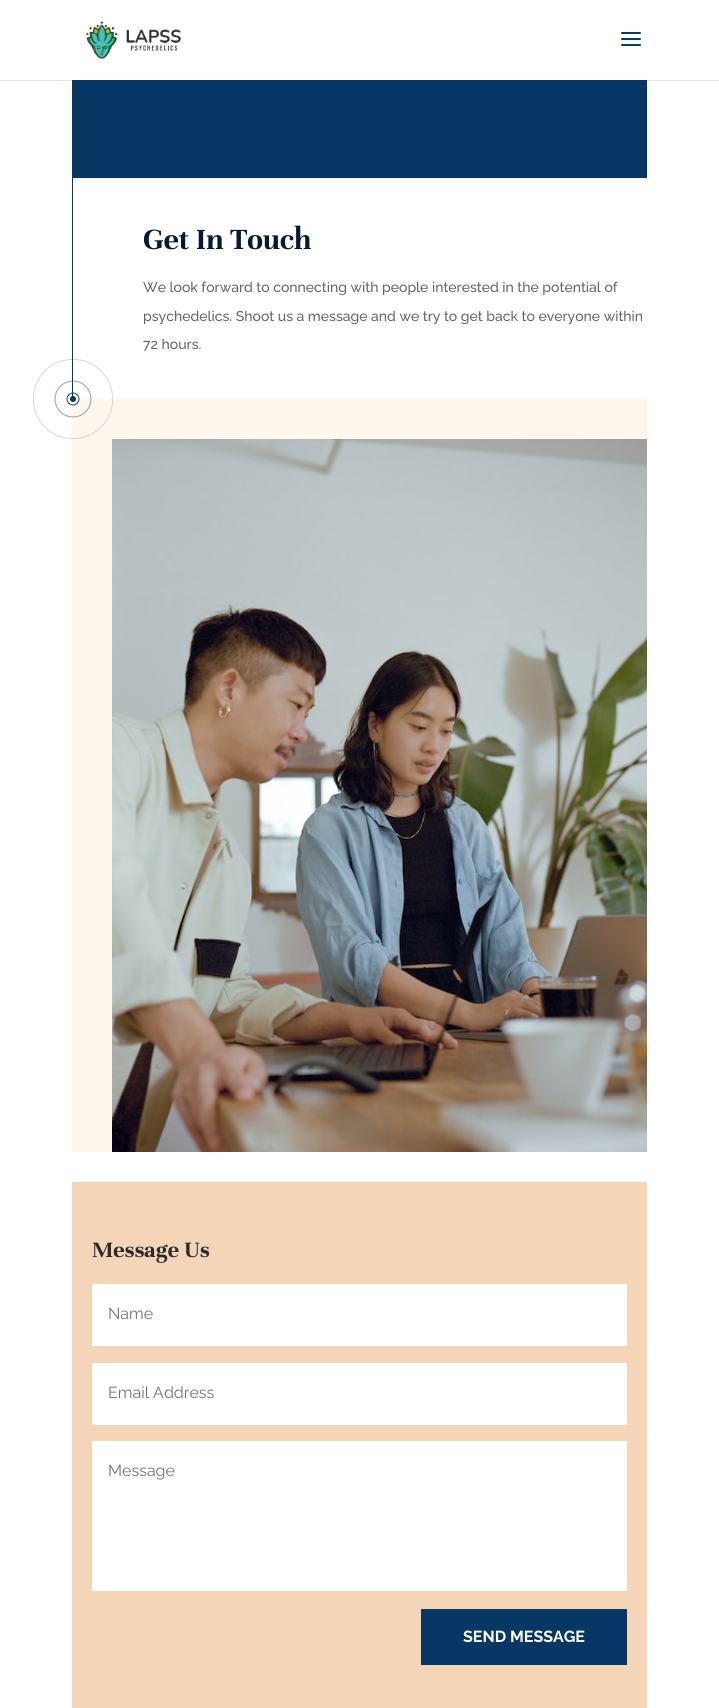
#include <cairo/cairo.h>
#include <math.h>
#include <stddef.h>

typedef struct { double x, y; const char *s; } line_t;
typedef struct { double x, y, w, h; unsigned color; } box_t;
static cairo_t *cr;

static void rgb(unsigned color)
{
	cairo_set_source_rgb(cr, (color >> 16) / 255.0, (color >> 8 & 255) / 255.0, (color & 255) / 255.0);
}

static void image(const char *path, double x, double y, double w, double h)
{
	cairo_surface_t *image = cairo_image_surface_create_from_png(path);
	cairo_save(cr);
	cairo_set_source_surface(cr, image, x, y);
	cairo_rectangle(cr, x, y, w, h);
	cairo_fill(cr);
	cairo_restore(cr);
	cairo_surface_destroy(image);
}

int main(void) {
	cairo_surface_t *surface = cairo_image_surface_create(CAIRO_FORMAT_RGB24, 719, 1708);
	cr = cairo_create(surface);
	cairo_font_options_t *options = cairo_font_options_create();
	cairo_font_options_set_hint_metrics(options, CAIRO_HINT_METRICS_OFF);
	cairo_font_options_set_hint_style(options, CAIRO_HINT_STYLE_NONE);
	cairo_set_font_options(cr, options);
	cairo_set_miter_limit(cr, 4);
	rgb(0xffffff);
	cairo_paint(cr);
	{
		static const box_t items[] = {
			{0, 80, 719, 1, 0xe6e6e6},
			{72, 78, 1, 321, 0x063765},
			{72, 78, 1, 2, 0xffffff},
		};
		for (size_t i = 0; i < sizeof items / sizeof *items; i++) {
			rgb(items[i].color);
			cairo_rectangle(cr, items[i].x, items[i].y, items[i].w, items[i].h);
			cairo_fill(cr);
		}
	}
	image("img/1.png", 86, 21, 95, 38);
	image("img/2.png", 621, 32, 20, 14);
	{
		static const box_t items[] = {
			{72, 80, 575, 1, 0x05325b},
			{73, 81, 574, 97, 0x063765},
			{72, 399, 575, 753, 0xfff6ee},
		};
		for (size_t i = 0; i < sizeof items / sizeof *items; i++) {
			rgb(items[i].color);
			cairo_rectangle(cr, items[i].x, items[i].y, items[i].w, items[i].h);
			cairo_fill(cr);
		}
	}
	image("img/3.png", 33, 359, 80, 80);
	image("img/4.png", 112, 439, 535, 713);
	{
		static const box_t items[] = {
			{72, 1182, 575, 526, 0xf4d5b8},
			{92, 1284, 535, 62, 0xffffff},
			{92, 1363, 535, 62, 0xffffff},
			{92, 1441, 535, 150, 0xffffff},
			{421, 1609, 206, 56, 0x063765},
		};
		for (size_t i = 0; i < sizeof items / sizeof *items; i++) {
			rgb(items[i].color);
			cairo_rectangle(cr, items[i].x, items[i].y, items[i].w, items[i].h);
			cairo_fill(cr);
		}
	}
	cairo_select_font_face(cr, "Unna", CAIRO_FONT_SLANT_NORMAL, CAIRO_FONT_WEIGHT_BOLD);
	cairo_set_font_size(cr, 32);
	rgb(0x061a32);
	cairo_move_to(cr, 143, 249);
	cairo_show_text(cr, "Get In Touch");
	cairo_select_font_face(cr, "Raleway Medium", CAIRO_FONT_SLANT_NORMAL, CAIRO_FONT_WEIGHT_NORMAL);
	cairo_set_font_size(cr, 14);
	rgb(0x666666);
	{
		static const line_t items[] = {
			{143, 292, "We look forward to connecting with people interested in the potential of"},
			{143, 321, "psychedelics. Shoot us a message and we try to get back to everyone within"},
			{143, 349, "72 hours."},
		};
		for (size_t i = 0; i < sizeof items / sizeof *items; i++) {
			cairo_move_to(cr, items[i].x, items[i].y);
			cairo_show_text(cr, items[i].s);
		}
	}
	cairo_select_font_face(cr, "Unna", CAIRO_FONT_SLANT_NORMAL, CAIRO_FONT_WEIGHT_BOLD);
	cairo_set_font_size(cr, 24);
	rgb(0x2a2a2a);
	cairo_move_to(cr, 92, 1257);
	cairo_show_text(cr, "Message Us");
	cairo_select_font_face(cr, "Raleway", CAIRO_FONT_SLANT_NORMAL, CAIRO_FONT_WEIGHT_NORMAL);
	cairo_set_font_size(cr, 16);
	rgb(0x757575);
	{
		static const line_t items[] = {
			{108, 1319, "Name"},
			{108, 1398, "Email Address"},
			{108, 1476, "Message"},
		};
		for (size_t i = 0; i < sizeof items / sizeof *items; i++) {
			cairo_move_to(cr, items[i].x, items[i].y);
			cairo_show_text(cr, items[i].s);
		}
	}
	cairo_select_font_face(cr, "Raleway", CAIRO_FONT_SLANT_NORMAL, CAIRO_FONT_WEIGHT_BOLD);
	rgb(0xffffff);
	cairo_move_to(cr, 463, 1642);
	cairo_show_text(cr, "SEND MESSAGE");
	cairo_surface_write_to_png(surface, "page.png");
	cairo_font_options_destroy(options);
	cairo_destroy(cr);
	cairo_surface_destroy(surface);
	return 0;
}
